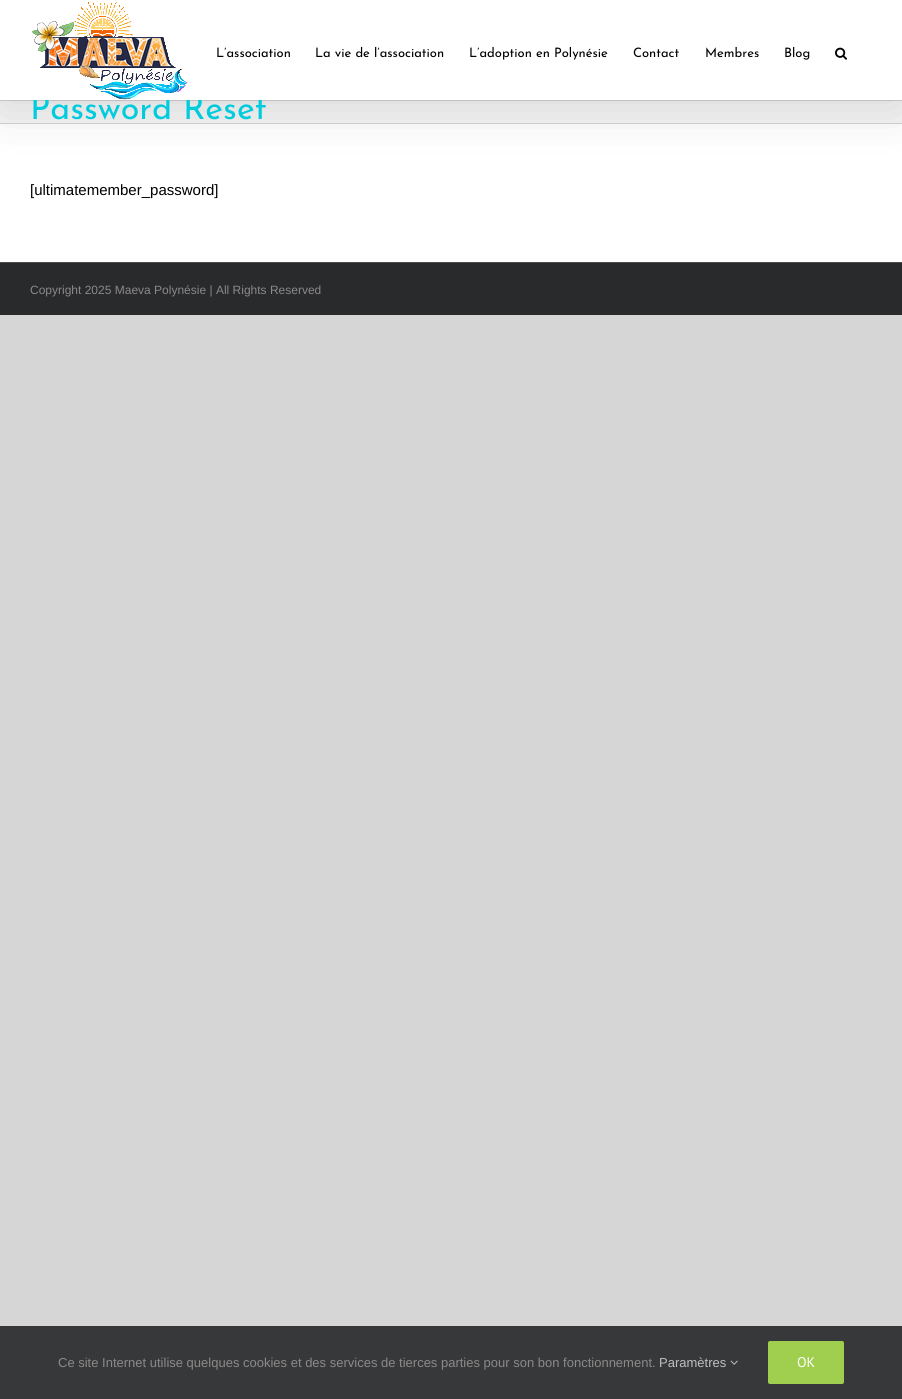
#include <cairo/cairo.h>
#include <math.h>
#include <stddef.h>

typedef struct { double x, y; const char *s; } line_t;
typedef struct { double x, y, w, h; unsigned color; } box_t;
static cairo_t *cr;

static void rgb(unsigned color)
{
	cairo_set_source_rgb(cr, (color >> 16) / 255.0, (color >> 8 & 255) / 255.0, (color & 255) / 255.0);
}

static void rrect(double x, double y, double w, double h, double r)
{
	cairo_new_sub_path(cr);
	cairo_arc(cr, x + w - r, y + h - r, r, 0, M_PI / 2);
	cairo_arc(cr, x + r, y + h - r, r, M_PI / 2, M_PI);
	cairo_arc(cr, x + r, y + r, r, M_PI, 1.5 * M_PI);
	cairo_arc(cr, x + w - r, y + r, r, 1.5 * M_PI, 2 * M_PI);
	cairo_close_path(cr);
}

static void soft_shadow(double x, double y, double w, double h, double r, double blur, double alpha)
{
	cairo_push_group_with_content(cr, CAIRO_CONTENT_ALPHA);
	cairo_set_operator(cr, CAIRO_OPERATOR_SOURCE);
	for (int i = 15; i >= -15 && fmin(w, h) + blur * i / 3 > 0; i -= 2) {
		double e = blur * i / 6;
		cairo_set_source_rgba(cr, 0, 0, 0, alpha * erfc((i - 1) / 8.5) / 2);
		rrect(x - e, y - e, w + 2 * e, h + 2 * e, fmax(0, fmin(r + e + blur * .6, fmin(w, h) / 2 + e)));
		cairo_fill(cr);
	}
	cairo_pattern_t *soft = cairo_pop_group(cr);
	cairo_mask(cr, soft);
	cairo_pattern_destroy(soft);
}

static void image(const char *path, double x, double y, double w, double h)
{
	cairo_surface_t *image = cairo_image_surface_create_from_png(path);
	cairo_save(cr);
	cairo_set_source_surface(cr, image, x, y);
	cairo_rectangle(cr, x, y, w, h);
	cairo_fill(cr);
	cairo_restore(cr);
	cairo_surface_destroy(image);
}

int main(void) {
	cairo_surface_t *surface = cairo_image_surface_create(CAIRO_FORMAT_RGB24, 902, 1399);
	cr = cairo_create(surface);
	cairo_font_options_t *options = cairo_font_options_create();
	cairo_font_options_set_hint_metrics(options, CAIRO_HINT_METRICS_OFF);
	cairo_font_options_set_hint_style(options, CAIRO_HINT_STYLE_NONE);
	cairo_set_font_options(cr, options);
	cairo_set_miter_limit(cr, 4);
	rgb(0xd7d6d6);
	cairo_paint(cr);
	{
		static const box_t items[] = {
			{0, 101, 902, 22, 0xf6f6f6},
			{0, 100, 902, 1, 0xd2d3d4},
			{0, 123, 902, 1, 0xd2d3d4},
			{0, 124, 902, 138, 0xffffff},
		};
		for (size_t i = 0; i < sizeof items / sizeof *items; i++) {
			rgb(items[i].color);
			cairo_rectangle(cr, items[i].x, items[i].y, items[i].w, items[i].h);
			cairo_fill(cr);
		}
	}
	rgb(0x000000);
	soft_shadow(2, 12, 898, 96, 0, 25, 0.14);
	{
		static const box_t items[] = {
			{0, 263, 902, 52, 0x282a2b},
			{0, 262, 902, 1, 0x4b4c4d},
			{0, 1326, 902, 73, 0x363839},
		};
		for (size_t i = 0; i < sizeof items / sizeof *items; i++) {
			rgb(items[i].color);
			cairo_rectangle(cr, items[i].x, items[i].y, items[i].w, items[i].h);
			cairo_fill(cr);
		}
	}
	image("img/3.png", 730, 1360, 8, 5);
	rgb(0xa0ce4e);
	rrect(768, 1341, 76, 43, 2);
	cairo_fill(cr);
	cairo_select_font_face(cr, "Josefin Sans Thin", CAIRO_FONT_SLANT_NORMAL, CAIRO_FONT_WEIGHT_NORMAL);
	cairo_set_font_size(cr, 34);
	rgb(0x00ccdd);
	cairo_move_to(cr, 30, 119);
	cairo_show_text(cr, "Password Reset");
	rgb(0xffffff);
	cairo_rectangle(cr, 0, 0, 902, 100);
	cairo_fill(cr);
	image("img/2.png", 835, 47, 12, 13);
	cairo_set_font_size(cr, 13);
	rgb(0x000000);
	{
		static const line_t items[] = {
			{784, 57, "Blog"},
			{705, 57, "Membres"},
			{633, 57, "Contact"},
			{469, 57, "L’adoption en Polynésie"},
			{315, 57, "La vie de l’association"},
			{216, 57, "L’association"},
		};
		for (size_t i = 0; i < sizeof items / sizeof *items; i++) {
			cairo_move_to(cr, items[i].x, items[i].y);
			cairo_show_text(cr, items[i].s);
		}
	}
	image("img/1.png", 32, 2, 156, 98);
	cairo_select_font_face(cr, "Liberation Sans", CAIRO_FONT_SLANT_NORMAL, CAIRO_FONT_WEIGHT_NORMAL);
	cairo_set_font_size(cr, 15);
	cairo_move_to(cr, 30, 195);
	cairo_show_text(cr, "[ultimatemember_password]");
	cairo_set_font_size(cr, 12);
	rgb(0x8c8989);
	cairo_move_to(cr, 30, 294);
	cairo_show_text(cr, "Copyright 2025 Maeva Polynésie | All Rights Reserved");
	cairo_set_font_size(cr, 13);
	cairo_move_to(cr, 58, 1367);
	cairo_show_text(cr, "Ce site Internet utilise quelques cookies et des services de tierces parties pour son bon fonctionnement.");
	rgb(0xbfbfbf);
	cairo_move_to(cr, 659, 1367);
	cairo_show_text(cr, "Paramètres");
	cairo_select_font_face(cr, "PT Sans", CAIRO_FONT_SLANT_NORMAL, CAIRO_FONT_WEIGHT_NORMAL);
	cairo_set_font_size(cr, 14);
	rgb(0xffffff);
	cairo_move_to(cr, 797, 1367);
	cairo_show_text(cr, "OK");
	cairo_surface_write_to_png(surface, "page.png");
	cairo_font_options_destroy(options);
	cairo_destroy(cr);
	cairo_surface_destroy(surface);
	return 0;
}
